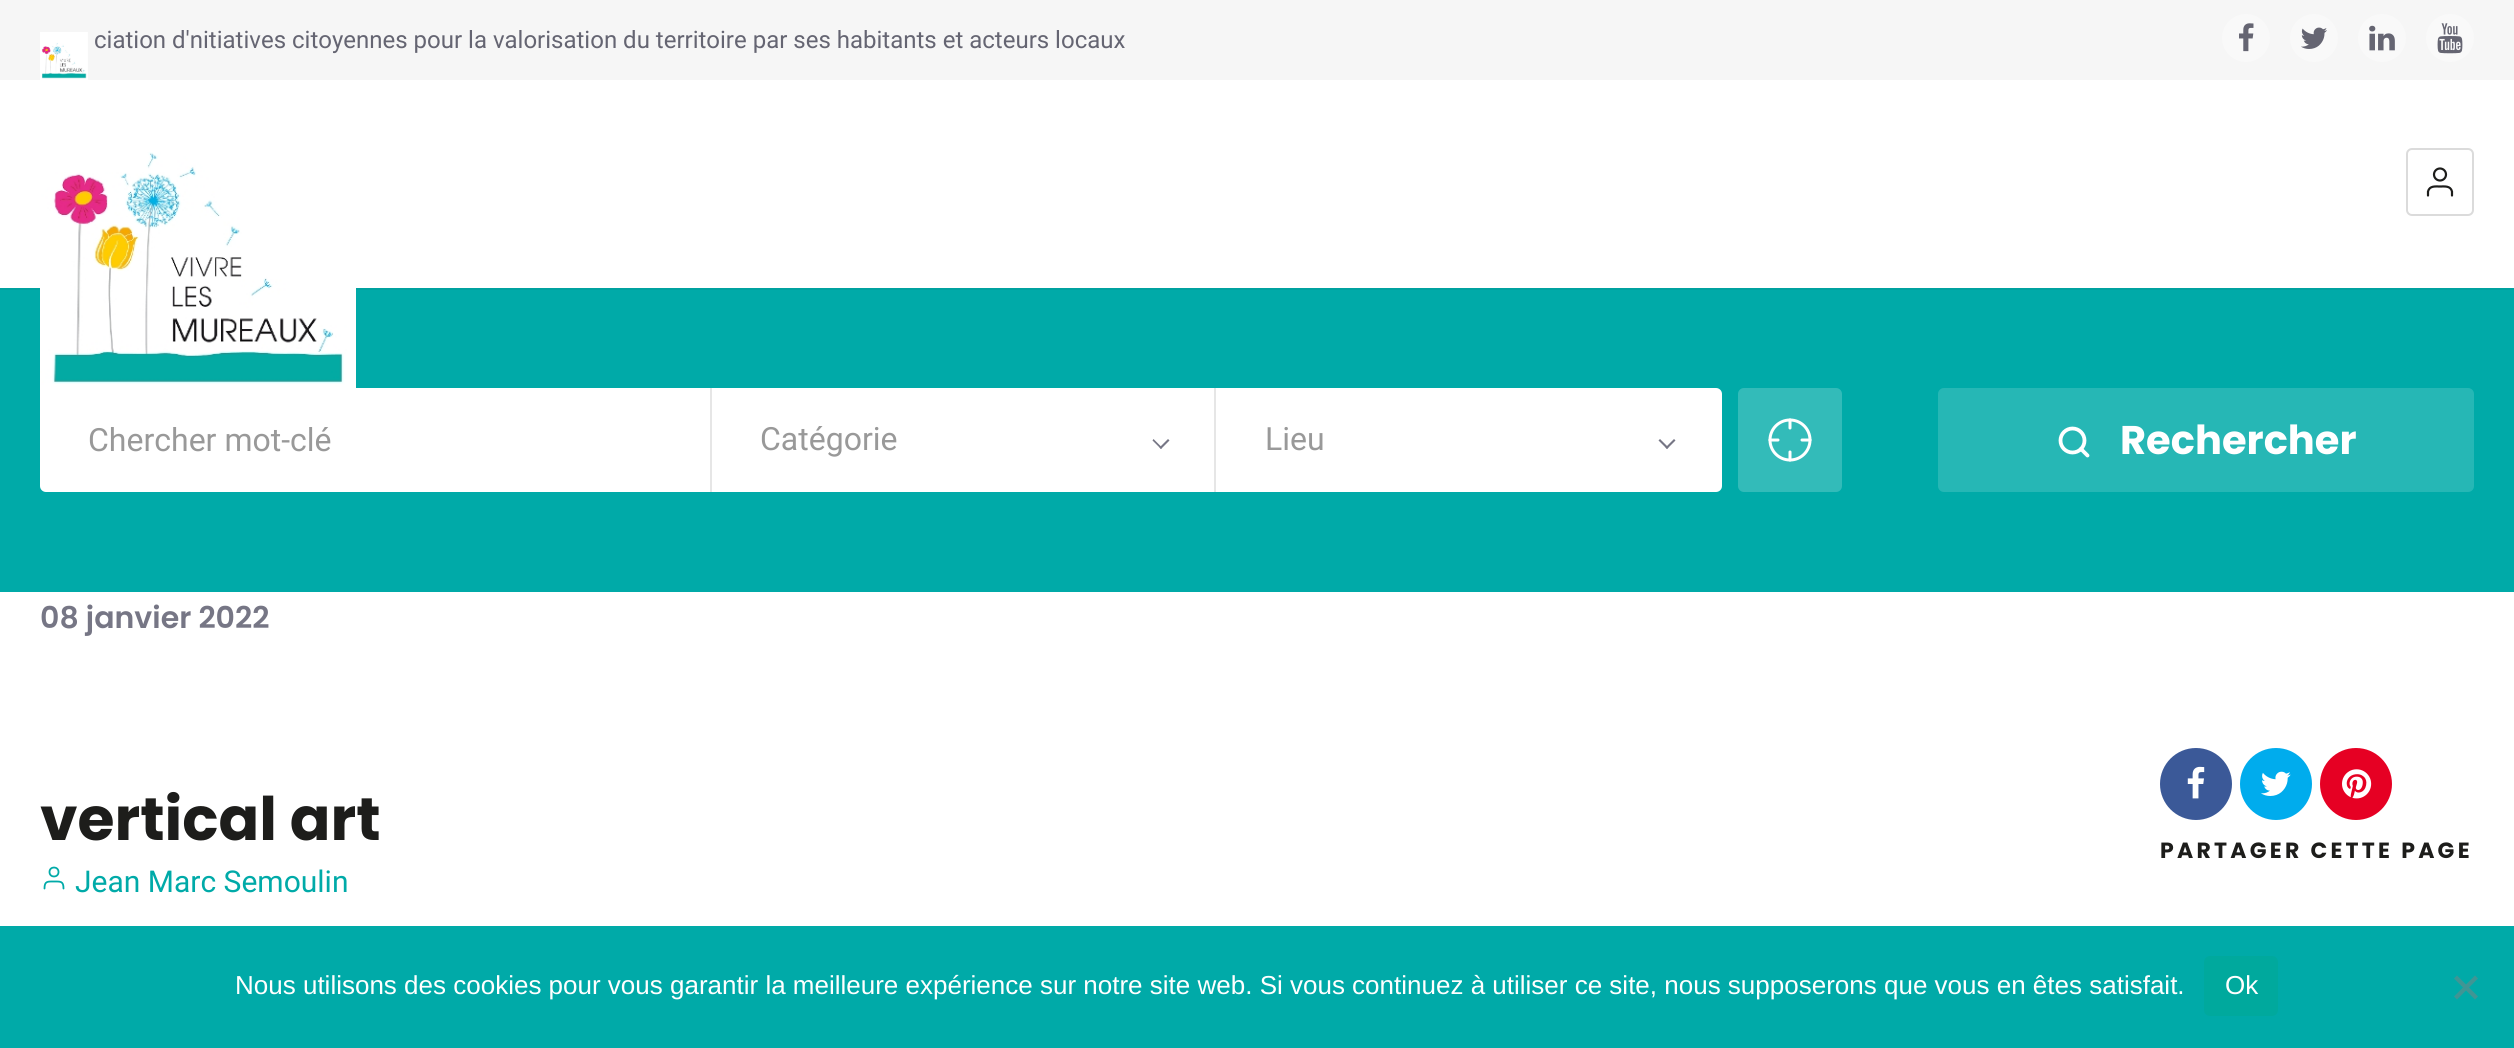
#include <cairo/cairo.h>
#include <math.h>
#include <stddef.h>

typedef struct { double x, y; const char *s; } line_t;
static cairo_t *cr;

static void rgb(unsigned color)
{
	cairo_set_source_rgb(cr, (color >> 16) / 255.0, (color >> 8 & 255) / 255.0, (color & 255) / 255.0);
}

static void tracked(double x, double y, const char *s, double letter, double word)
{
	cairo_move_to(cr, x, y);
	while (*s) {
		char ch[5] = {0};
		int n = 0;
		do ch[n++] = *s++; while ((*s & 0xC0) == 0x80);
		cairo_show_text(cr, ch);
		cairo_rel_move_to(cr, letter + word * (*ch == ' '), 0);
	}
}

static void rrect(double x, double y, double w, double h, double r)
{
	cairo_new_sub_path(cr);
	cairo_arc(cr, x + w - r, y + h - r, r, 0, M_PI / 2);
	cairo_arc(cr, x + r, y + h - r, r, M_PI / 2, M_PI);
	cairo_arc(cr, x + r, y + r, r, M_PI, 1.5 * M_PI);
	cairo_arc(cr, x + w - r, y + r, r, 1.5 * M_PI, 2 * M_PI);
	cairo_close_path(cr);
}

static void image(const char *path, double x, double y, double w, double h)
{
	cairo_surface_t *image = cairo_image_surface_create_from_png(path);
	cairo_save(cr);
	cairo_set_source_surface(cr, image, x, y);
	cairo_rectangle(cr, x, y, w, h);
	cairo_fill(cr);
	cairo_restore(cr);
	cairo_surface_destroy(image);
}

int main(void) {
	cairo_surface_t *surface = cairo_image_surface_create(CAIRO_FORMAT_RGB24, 2514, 1048);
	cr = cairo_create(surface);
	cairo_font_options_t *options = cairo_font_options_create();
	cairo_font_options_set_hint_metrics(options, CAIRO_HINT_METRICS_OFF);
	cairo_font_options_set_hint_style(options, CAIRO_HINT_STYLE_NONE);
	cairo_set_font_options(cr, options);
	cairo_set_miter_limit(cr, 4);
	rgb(0xffffff);
	cairo_paint(cr);
	rgb(0xf6f6f6);
	cairo_rectangle(cr, 0, 0, 2514, 80);
	cairo_fill(cr);
	image("img/1.png", 40, 32, 48, 48);
	rgb(0x00a2a0);
	cairo_rectangle(cr, 0, 288, 2514, 2);
	cairo_fill(cr);
	cairo_set_source_rgba(cr, 1, 1, 1, 0.3);
	cairo_arc(cr, 2246, 38, 24, 0, 2 * M_PI);
	cairo_fill(cr);
	image("img/2.png", 2239, 23, 15, 29);
	cairo_arc(cr, 2314, 38, 24, 0, 2 * M_PI);
	cairo_fill(cr);
	image("img/3.png", 2301, 27, 26, 22);
	cairo_arc(cr, 2382, 38, 24, 0, 2 * M_PI);
	cairo_fill(cr);
	image("img/4.png", 2369, 25, 26, 26);
	cairo_arc(cr, 2450, 38, 24, 0, 2 * M_PI);
	cairo_fill(cr);
	image("img/5.png", 2437, 23, 26, 31);
	rgb(0x00aaa8);
	cairo_rectangle(cr, 0, 290, 2514, 302);
	cairo_fill(cr);
	rgb(0xffffff);
	rrect(40, 388, 1682, 104, 6);
	cairo_fill(cr);
	image("img/6.png", 40, 152, 316, 242);
	rrect(2407, 149, 66, 66, 5);
	rgb(0xdbdbdb);
	cairo_stroke(cr);
	cairo_arc(cr, 2440, 174.5, 6, 0, 2 * M_PI);
	rgb(0x1d1d1b);
	cairo_set_line_width(cr, 2.2);
	cairo_stroke(cr);
	cairo_new_path(cr);
	cairo_move_to(cr, 2452, 195.5);
	cairo_line_to(cr, 2452, 191.5);
	cairo_curve_to(cr, 2450.5, 185.5, 2444.5, 186.5, 2440, 186.5);
	cairo_curve_to(cr, 2435.5, 186.5, 2429.5, 185.5, 2428, 191.5);
	cairo_line_to(cr, 2428, 195.5);
	cairo_set_line_cap(cr, CAIRO_LINE_CAP_ROUND);
	cairo_set_line_join(cr, CAIRO_LINE_JOIN_ROUND);
	cairo_stroke(cr);
	rgb(0xe6e6e6);
	cairo_rectangle(cr, 710, 388, 2, 104);
	cairo_fill(cr);
	cairo_rectangle(cr, 1214, 388, 2, 104);
	cairo_fill(cr);
	rgb(0x767685);
	cairo_new_path(cr);
	cairo_move_to(cr, 1168, 439);
	cairo_line_to(cr, 1169.5, 440.5);
	cairo_line_to(cr, 1161, 449);
	cairo_line_to(cr, 1159.5, 447.5);
	cairo_close_path(cr);
	cairo_fill(cr);
	cairo_new_path(cr);
	cairo_move_to(cr, 1153.5, 439);
	cairo_line_to(cr, 1162, 447.5);
	cairo_line_to(cr, 1161, 449);
	cairo_line_to(cr, 1152.5, 440.5);
	cairo_close_path(cr);
	cairo_fill(cr);
	cairo_new_path(cr);
	cairo_move_to(cr, 1674, 439);
	cairo_line_to(cr, 1675.5, 440.5);
	cairo_line_to(cr, 1667, 449);
	cairo_line_to(cr, 1665.5, 447.5);
	cairo_close_path(cr);
	cairo_fill(cr);
	cairo_new_path(cr);
	cairo_move_to(cr, 1660, 439);
	cairo_line_to(cr, 1668.5, 447.5);
	cairo_line_to(cr, 1667, 449);
	cairo_line_to(cr, 1658.5, 440.5);
	cairo_close_path(cr);
	cairo_fill(cr);
	rgb(0x33bbb9);
	rrect(1738, 388, 104, 104, 6);
	cairo_fill(cr);
	cairo_arc(cr, 1790, 440, 20, 0, 2 * M_PI);
	rgb(0xffffff);
	cairo_set_line_width(cr, 3);
	cairo_set_line_cap(cr, CAIRO_LINE_CAP_BUTT);
	cairo_set_line_join(cr, CAIRO_LINE_JOIN_MITER);
	cairo_stroke(cr);
	cairo_new_path(cr);
	cairo_move_to(cr, 1810, 440);
	cairo_line_to(cr, 1802, 440);
	cairo_move_to(cr, 1778, 440);
	cairo_line_to(cr, 1770, 440);
	cairo_move_to(cr, 1790, 428);
	cairo_line_to(cr, 1790, 420);
	cairo_move_to(cr, 1790, 460);
	cairo_line_to(cr, 1790, 452);
	cairo_set_line_cap(cr, CAIRO_LINE_CAP_ROUND);
	cairo_set_line_join(cr, CAIRO_LINE_JOIN_ROUND);
	cairo_stroke(cr);
	rgb(0x26b7b5);
	rrect(1938, 388, 536, 104, 6);
	cairo_fill(cr);
	cairo_arc(cr, 2072.5, 440.5, 12, 0, 2 * M_PI);
	rgb(0xffffff);
	cairo_set_line_width(cr, 3.8);
	cairo_set_line_cap(cr, CAIRO_LINE_CAP_BUTT);
	cairo_set_line_join(cr, CAIRO_LINE_JOIN_MITER);
	cairo_stroke(cr);
	cairo_new_path(cr);
	cairo_move_to(cr, 2087.5, 455.5);
	cairo_line_to(cr, 2081, 449);
	cairo_set_line_cap(cr, CAIRO_LINE_CAP_ROUND);
	cairo_set_line_join(cr, CAIRO_LINE_JOIN_ROUND);
	cairo_stroke(cr);
	cairo_new_path(cr);
	cairo_move_to(cr, 63.5, 888.5);
	cairo_curve_to(cr, 63.5, 881, 60.5, 881.5, 54, 881.5);
	cairo_curve_to(cr, 47.5, 881.5, 44.5, 881, 44.5, 888.5);
	rgb(0x00aaa8);
	cairo_set_line_width(cr, 1.8);
	cairo_stroke(cr);
	cairo_arc(cr, 54, 872, 4.5, 0, 2 * M_PI);
	cairo_set_line_cap(cr, CAIRO_LINE_CAP_BUTT);
	cairo_set_line_join(cr, CAIRO_LINE_JOIN_MITER);
	cairo_stroke(cr);
	rgb(0x3b5998);
	cairo_arc(cr, 2196, 784, 36, 0, 2 * M_PI);
	cairo_fill(cr);
	image("img/7.png", 2187, 766, 18, 33);
	rgb(0x00aced);
	cairo_arc(cr, 2276, 784, 36, 0, 2 * M_PI);
	cairo_fill(cr);
	image("img/8.png", 2261, 771, 30, 25);
	rgb(0xe60023);
	cairo_arc(cr, 2356, 784, 36, 0, 2 * M_PI);
	cairo_fill(cr);
	image("img/9.png", 2342, 769, 30, 30);
	rgb(0x00aaa8);
	cairo_rectangle(cr, 0, 926, 2514, 122);
	cairo_fill(cr);
	rgb(0x00a99d);
	rrect(2204, 956, 74, 60, 6);
	cairo_fill(cr);
	rgb(0x409594);
	cairo_new_path(cr);
	cairo_move_to(cr, 2475, 975.5);
	cairo_line_to(cr, 2478, 978.5);
	cairo_line_to(cr, 2457, 999.5);
	cairo_line_to(cr, 2454, 996.5);
	cairo_close_path(cr);
	cairo_fill(cr);
	cairo_new_path(cr);
	cairo_move_to(cr, 2454, 978.5);
	cairo_line_to(cr, 2457, 975.5);
	cairo_line_to(cr, 2478, 996.5);
	cairo_line_to(cr, 2475, 999.5);
	cairo_close_path(cr);
	cairo_fill(cr);
	cairo_select_font_face(cr, "Roboto", CAIRO_FONT_SLANT_NORMAL, CAIRO_FONT_WEIGHT_NORMAL);
	cairo_set_font_size(cr, 24);
	rgb(0x656572);
	cairo_move_to(cr, 94, 48);
	cairo_show_text(cr, "ciation d'nitiatives citoyennes pour la valorisation du territoire par ses habitants et acteurs locaux");
	cairo_set_font_size(cr, 32);
	rgb(0x999999);
	{
		static const line_t items[] = {
			{88, 451, "Chercher mot-clé"},
			{760, 450, "Catégorie"},
			{1265, 450, "Lieu"},
		};
		for (size_t i = 0; i < sizeof items / sizeof *items; i++) {
			cairo_move_to(cr, items[i].x, items[i].y);
			cairo_show_text(cr, items[i].s);
		}
	}
	cairo_select_font_face(cr, "Poppins", CAIRO_FONT_SLANT_NORMAL, CAIRO_FONT_WEIGHT_BOLD);
	cairo_set_font_size(cr, 40);
	rgb(0xffffff);
	cairo_move_to(cr, 2120, 454);
	cairo_show_text(cr, "Rechercher");
	cairo_select_font_face(cr, "Poppins SemiBold", CAIRO_FONT_SLANT_NORMAL, CAIRO_FONT_WEIGHT_NORMAL);
	cairo_set_font_size(cr, 30);
	rgb(0x767685);
	cairo_move_to(cr, 40, 628);
	cairo_show_text(cr, "08 janvier 2022");
	cairo_select_font_face(cr, "Poppins", CAIRO_FONT_SLANT_NORMAL, CAIRO_FONT_WEIGHT_BOLD);
	cairo_set_font_size(cr, 60);
	rgb(0x1d1d1b);
	cairo_move_to(cr, 40, 840);
	cairo_show_text(cr, "vertical art");
	cairo_select_font_face(cr, "Roboto", CAIRO_FONT_SLANT_NORMAL, CAIRO_FONT_WEIGHT_NORMAL);
	cairo_set_font_size(cr, 30);
	rgb(0x00aaa8);
	cairo_move_to(cr, 75, 892);
	cairo_show_text(cr, "Jean Marc Semoulin");
	cairo_select_font_face(cr, "Poppins", CAIRO_FONT_SLANT_NORMAL, CAIRO_FONT_WEIGHT_BOLD);
	cairo_set_font_size(cr, 22);
	rgb(0x1d1d1b);
	tracked(2160, 858, "PARTAGER CETTE PAGE", 3.25, 0);
	cairo_select_font_face(cr, "Liberation Sans", CAIRO_FONT_SLANT_NORMAL, CAIRO_FONT_WEIGHT_NORMAL);
	cairo_set_font_size(cr, 26);
	rgb(0xffffff);
	cairo_move_to(cr, 235, 994);
	cairo_show_text(cr, "Nous utilisons des cookies pour vous garantir la meilleure expérience sur notre site web. Si vous continuez à utiliser ce site, nous supposerons que vous en êtes satisfait.");
	cairo_move_to(cr, 2225, 994);
	cairo_show_text(cr, "Ok");
	cairo_surface_write_to_png(surface, "page.png");
	cairo_font_options_destroy(options);
	cairo_destroy(cr);
	cairo_surface_destroy(surface);
	return 0;
}
